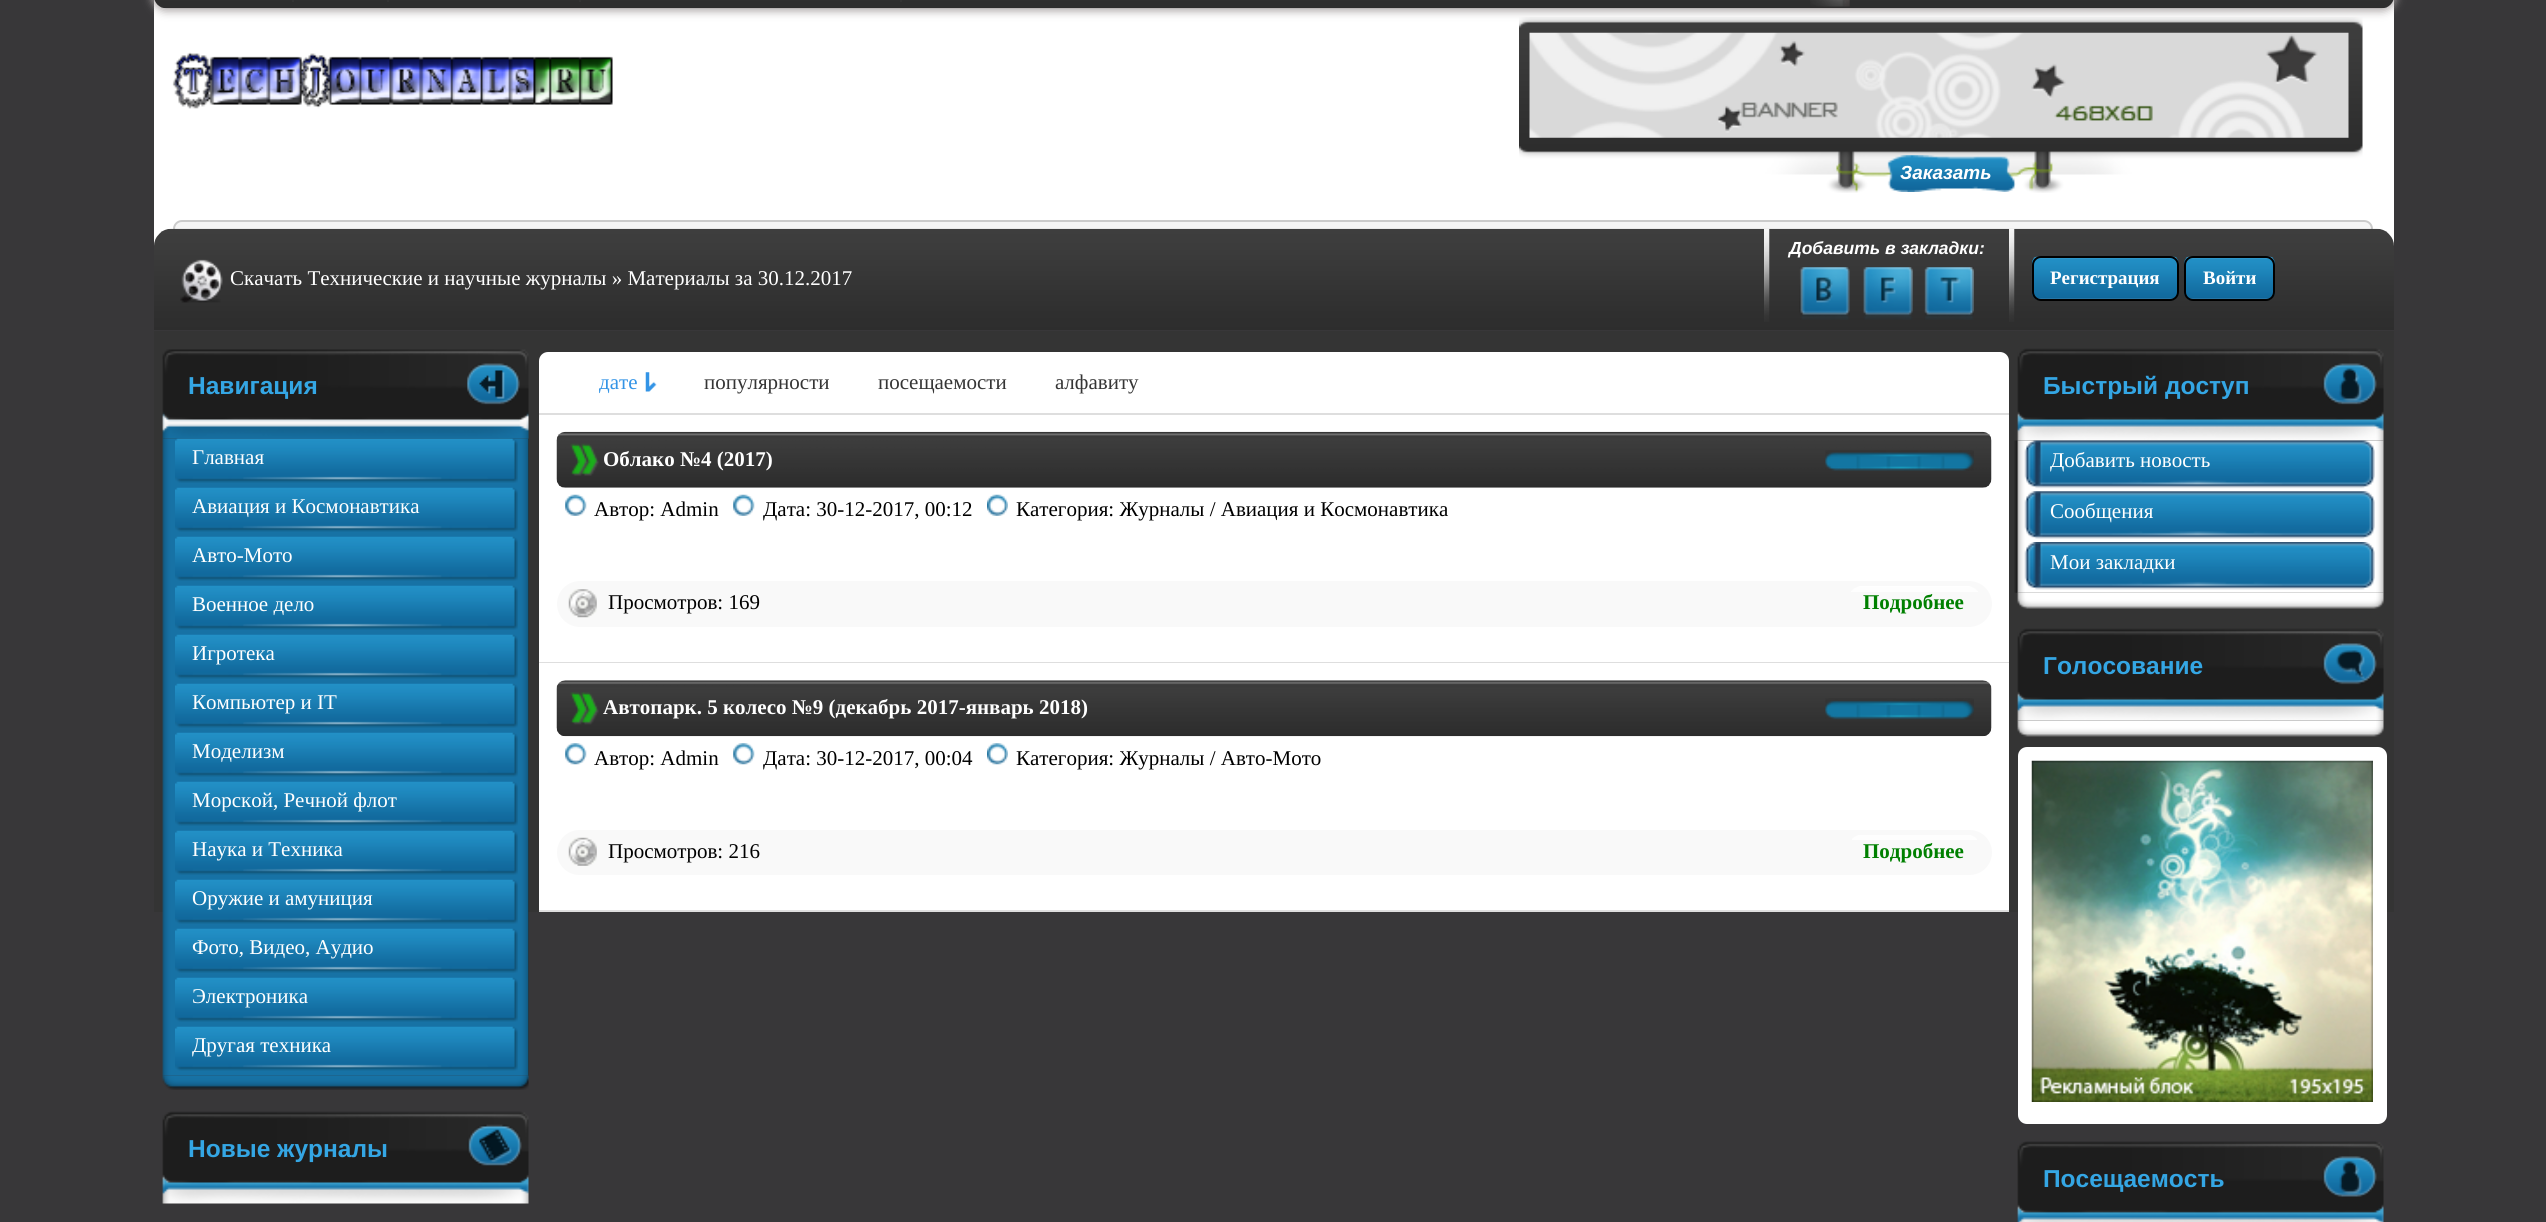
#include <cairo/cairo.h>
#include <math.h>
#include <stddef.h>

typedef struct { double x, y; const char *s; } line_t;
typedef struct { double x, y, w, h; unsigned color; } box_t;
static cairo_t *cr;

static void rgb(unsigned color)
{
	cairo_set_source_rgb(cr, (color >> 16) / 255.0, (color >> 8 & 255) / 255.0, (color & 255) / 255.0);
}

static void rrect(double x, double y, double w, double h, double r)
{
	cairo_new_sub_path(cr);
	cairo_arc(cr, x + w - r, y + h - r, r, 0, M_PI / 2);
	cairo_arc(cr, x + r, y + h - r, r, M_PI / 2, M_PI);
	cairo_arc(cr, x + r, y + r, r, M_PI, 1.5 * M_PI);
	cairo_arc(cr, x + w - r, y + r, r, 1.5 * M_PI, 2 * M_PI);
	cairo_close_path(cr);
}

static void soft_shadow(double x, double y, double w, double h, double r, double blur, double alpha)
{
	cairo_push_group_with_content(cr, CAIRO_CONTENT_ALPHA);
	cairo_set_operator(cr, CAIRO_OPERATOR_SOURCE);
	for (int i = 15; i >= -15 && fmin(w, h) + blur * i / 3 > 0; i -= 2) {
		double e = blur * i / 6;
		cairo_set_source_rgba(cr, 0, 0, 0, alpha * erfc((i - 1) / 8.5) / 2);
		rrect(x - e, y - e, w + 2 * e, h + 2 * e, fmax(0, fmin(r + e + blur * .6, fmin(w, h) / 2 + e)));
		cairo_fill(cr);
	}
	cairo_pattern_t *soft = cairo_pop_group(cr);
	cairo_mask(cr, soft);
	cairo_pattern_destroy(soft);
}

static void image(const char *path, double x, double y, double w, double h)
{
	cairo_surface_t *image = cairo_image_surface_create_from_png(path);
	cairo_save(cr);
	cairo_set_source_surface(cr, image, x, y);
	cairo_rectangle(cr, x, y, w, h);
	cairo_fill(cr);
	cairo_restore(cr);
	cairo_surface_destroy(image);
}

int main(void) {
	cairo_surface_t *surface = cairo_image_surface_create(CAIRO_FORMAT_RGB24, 2546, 1222);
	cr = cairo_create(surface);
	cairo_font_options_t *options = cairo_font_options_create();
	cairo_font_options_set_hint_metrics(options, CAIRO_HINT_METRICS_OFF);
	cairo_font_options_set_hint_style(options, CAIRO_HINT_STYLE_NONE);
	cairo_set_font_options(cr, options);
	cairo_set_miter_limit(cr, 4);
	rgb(0x383739);
	cairo_paint(cr);
	rgb(0xffffff);
	cairo_rectangle(cr, 154, 0, 2240, 246);
	cairo_fill(cr);
	rgb(0xaba6a6);
	soft_shadow(152, -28, 2244, 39, 14, 4.5, 1);
	image("img/1.png", 154, 0, 2240, 9);
	{
		static const box_t items[] = {
			{292, 0, 2, 2, 0x343434},
			{387, 0, 2, 2, 0x343434},
			{579, 0, 2, 2, 0x343434},
			{900, 0, 2, 2, 0x343434},
		};
		for (size_t i = 0; i < sizeof items / sizeof *items; i++) {
			rgb(items[i].color);
			cairo_rectangle(cr, items[i].x, items[i].y, items[i].w, items[i].h);
			cairo_fill(cr);
		}
	}
	image("img/2.png", 1810, 0, 40, 7);
	image("img/3.png", 172, 52, 441, 57);
	image("img/4.png", 1519, 17, 844, 176);
	image("img/5.png", 1529, 32, 820, 106);
	image("img/6.png", 1887, 155, 129, 37);
	rgb(0xf5f5f5);
	cairo_new_path(cr);
	cairo_move_to(cr, 181, 221);
	cairo_line_to(cr, 2365, 221);
	cairo_curve_to(cr, 2369.5, 221, 2373, 224.5, 2373, 229);
	cairo_line_to(cr, 173, 229);
	cairo_curve_to(cr, 173, 224.5, 176.5, 221, 181, 221);
	cairo_close_path(cr);
	cairo_fill(cr);
	rgb(0xcbcbcb);
	cairo_set_fill_rule(cr, CAIRO_FILL_RULE_EVEN_ODD);
	cairo_new_path(cr);
	cairo_move_to(cr, 182, 220);
	cairo_line_to(cr, 2364, 220);
	cairo_curve_to(cr, 2369, 220, 2373, 224, 2373, 229);
	cairo_line_to(cr, 173, 229);
	cairo_curve_to(cr, 173, 224, 177, 220, 182, 220);
	cairo_close_path(cr);
	cairo_move_to(cr, 182, 222);
	cairo_line_to(cr, 2364, 222);
	cairo_curve_to(cr, 2368, 222, 2371, 225, 2371, 229);
	cairo_line_to(cr, 175, 229);
	cairo_curve_to(cr, 175, 225, 178, 222, 182, 222);
	cairo_close_path(cr);
	cairo_fill(cr);
	image("img/7.png", 154, 228, 2240, 102);
	image("img/8.png", 180, 259, 43, 44);
	image("img/9.png", 1764, 228, 6, 94);
	image("img/10.png", 1799, 267, 51, 53);
	image("img/11.png", 1863, 267, 50, 53);
	image("img/12.png", 1924, 267, 50, 53);
	image("img/13.png", 2009, 228, 6, 94);
	image("img/14.png", 2031, 256, 148, 45);
	image("img/15.png", 2184, 256, 91, 45);
	rrect(2033, 257, 145, 43, 8);
	rgb(0x000000);
	cairo_stroke(cr);
	rrect(2185, 257, 89, 43, 8);
	cairo_stroke(cr);
	rgb(0x343434);
	cairo_rectangle(cr, 154, 331, 2240, 581);
	cairo_fill(cr);
	image("img/16.png", 162, 349, 367, 90);
	image("img/17.png", 467, 363, 53, 42);
	image("img/18.png", 162, 438, 367, 638);
	image("img/19.png", 175, 438, 343, 45);
	image("img/20.png", 175, 487, 343, 45);
	image("img/20.png", 175, 536, 343, 45);
	image("img/20.png", 175, 585, 343, 45);
	image("img/20.png", 175, 634, 343, 45);
	image("img/20.png", 175, 683, 343, 45);
	image("img/20.png", 175, 732, 343, 45);
	image("img/20.png", 175, 781, 343, 45);
	image("img/20.png", 175, 830, 343, 45);
	image("img/20.png", 175, 879, 343, 45);
	image("img/20.png", 175, 928, 343, 45);
	image("img/20.png", 175, 977, 343, 45);
	image("img/20.png", 175, 1026, 343, 45);
	image("img/21.png", 162, 1075, 367, 15);
	image("img/22.png", 162, 1111, 367, 93);
	image("img/23.png", 467, 1124, 55, 42);
	rgb(0xffffff);
	cairo_new_path(cr);
	cairo_move_to(cr, 548, 352);
	cairo_line_to(cr, 2000, 352);
	cairo_curve_to(cr, 2005, 352, 2009, 356, 2009, 361);
	cairo_line_to(cr, 2009, 415);
	cairo_line_to(cr, 539, 415);
	cairo_line_to(cr, 539, 361);
	cairo_curve_to(cr, 539, 356, 543, 352, 548, 352);
	cairo_close_path(cr);
	cairo_fill(cr);
	rgb(0xdedede);
	cairo_rectangle(cr, 539, 413, 1470, 2);
	cairo_fill(cr);
	image("img/24.png", 645, 372, 12, 20);
	rgb(0xffffff);
	cairo_rectangle(cr, 539, 415, 1470, 247);
	cairo_fill(cr);
	rgb(0xdedede);
	cairo_rectangle(cr, 539, 662, 1470, 1);
	cairo_fill(cr);
	image("img/25.png", 556, 431, 1436, 57);
	image("img/26.png", 570, 443, 29, 33);
	image("img/27.png", 1825, 450, 149, 21);
	image("img/28.png", 565, 494, 22, 22);
	image("img/29.png", 733, 494, 22, 22);
	image("img/30.png", 987, 494, 21, 22);
	rgb(0xf9f9f9);
	rrect(557, 581, 1435, 46, 23);
	cairo_fill(cr);
	image("img/31.png", 568, 589, 29, 29);
	image("img/32.png", 1851, 586, 127, 6);
	rgb(0xffffff);
	cairo_rectangle(cr, 539, 663, 1470, 247);
	cairo_fill(cr);
	rgb(0xdedede);
	cairo_rectangle(cr, 539, 910, 1470, 2);
	cairo_fill(cr);
	image("img/33.png", 556, 680, 1436, 57);
	image("img/34.png", 570, 692, 29, 33);
	image("img/35.png", 1825, 698, 149, 22);
	image("img/36.png", 565, 743, 22, 22);
	image("img/37.png", 733, 743, 22, 22);
	image("img/38.png", 987, 743, 21, 22);
	rgb(0xf9f9f9);
	rrect(557, 830, 1435, 45, 22.5);
	cairo_fill(cr);
	image("img/39.png", 568, 837, 29, 29);
	image("img/40.png", 1852, 835, 125, 5);
	image("img/41.png", 2017, 348, 367, 93);
	image("img/42.png", 2322, 363, 55, 42);
	image("img/43.png", 2014, 440, 370, 153);
	image("img/44.png", 2024, 440, 351, 49);
	image("img/45.png", 2024, 491, 351, 48);
	image("img/46.png", 2024, 542, 351, 48);
	image("img/47.png", 2017, 592, 367, 17);
	image("img/41.png", 2017, 628, 367, 93);
	image("img/48.png", 2322, 643, 55, 42);
	image("img/49.png", 2017, 720, 367, 17);
	rgb(0xffffff);
	rrect(2018, 747, 369, 377, 9);
	cairo_fill(cr);
	image("img/50.png", 2031, 760, 342, 342);
	image("img/51.png", 2017, 1141, 367, 81);
	image("img/52.png", 2322, 1156, 55, 41);
	cairo_select_font_face(cr, "Liberation Sans", CAIRO_FONT_SLANT_ITALIC, CAIRO_FONT_WEIGHT_BOLD);
	cairo_set_font_size(cr, 19);
	cairo_move_to(cr, 1900, 179);
	cairo_show_text(cr, "Заказать");
	cairo_select_font_face(cr, "Liberation Serif", CAIRO_FONT_SLANT_NORMAL, CAIRO_FONT_WEIGHT_NORMAL);
	cairo_set_font_size(cr, 21);
	cairo_move_to(cr, 230, 285);
	cairo_show_text(cr, "Скачать Технические и научные журналы » Материалы за 30.12.2017");
	cairo_select_font_face(cr, "Liberation Sans", CAIRO_FONT_SLANT_ITALIC, CAIRO_FONT_WEIGHT_BOLD);
	cairo_set_font_size(cr, 17.5);
	cairo_move_to(cr, 1789, 254);
	cairo_show_text(cr, "Добавить в закладки:");
	cairo_select_font_face(cr, "Liberation Serif", CAIRO_FONT_SLANT_NORMAL, CAIRO_FONT_WEIGHT_BOLD);
	cairo_set_font_size(cr, 19);
	cairo_move_to(cr, 2050, 284);
	cairo_show_text(cr, "Регистрация");
	cairo_move_to(cr, 2203, 284);
	cairo_show_text(cr, "Войти");
	cairo_select_font_face(cr, "Liberation Sans", CAIRO_FONT_SLANT_NORMAL, CAIRO_FONT_WEIGHT_BOLD);
	cairo_set_font_size(cr, 24.5);
	rgb(0x34a6e4);
	cairo_move_to(cr, 188, 394);
	cairo_show_text(cr, "Навигация");
	cairo_select_font_face(cr, "Liberation Serif", CAIRO_FONT_SLANT_NORMAL, CAIRO_FONT_WEIGHT_NORMAL);
	cairo_set_font_size(cr, 21);
	rgb(0xffffff);
	{
		static const line_t items[] = {
			{192, 464, "Главная"},
			{192, 513, "Авиация и Космонавтика"},
			{192, 562, "Авто-Мото"},
			{192, 611, "Военное дело"},
			{192, 660, "Игротека"},
			{192, 709, "Компьютер и IT"},
			{192, 758, "Моделизм"},
			{192, 807, "Морской, Речной флот"},
			{192, 856, "Наука и Техника"},
			{192, 905, "Оружие и амуниция"},
			{192, 954, "Фото, Видео, Аудио"},
			{192, 1003, "Электроника"},
			{192, 1052, "Другая техника"},
		};
		for (size_t i = 0; i < sizeof items / sizeof *items; i++) {
			cairo_move_to(cr, items[i].x, items[i].y);
			cairo_show_text(cr, items[i].s);
		}
	}
	cairo_select_font_face(cr, "Liberation Sans", CAIRO_FONT_SLANT_NORMAL, CAIRO_FONT_WEIGHT_BOLD);
	cairo_set_font_size(cr, 24.5);
	rgb(0x34a6e4);
	cairo_move_to(cr, 188, 1157);
	cairo_show_text(cr, "Новые журналы");
	cairo_select_font_face(cr, "Liberation Serif", CAIRO_FONT_SLANT_NORMAL, CAIRO_FONT_WEIGHT_NORMAL);
	cairo_set_font_size(cr, 21);
	rgb(0x3394e6);
	cairo_move_to(cr, 599, 389);
	cairo_show_text(cr, "дате");
	rgb(0x353535);
	{
		static const line_t items[] = {
			{704, 389, "популярности"},
			{878, 389, "посещаемости"},
			{1055, 389, "алфавиту"},
		};
		for (size_t i = 0; i < sizeof items / sizeof *items; i++) {
			cairo_move_to(cr, items[i].x, items[i].y);
			cairo_show_text(cr, items[i].s);
		}
	}
	cairo_select_font_face(cr, "Liberation Serif", CAIRO_FONT_SLANT_NORMAL, CAIRO_FONT_WEIGHT_BOLD);
	rgb(0xffffff);
	cairo_move_to(cr, 603, 466);
	cairo_show_text(cr, "Облако №4 (2017)");
	cairo_select_font_face(cr, "Liberation Serif", CAIRO_FONT_SLANT_NORMAL, CAIRO_FONT_WEIGHT_NORMAL);
	rgb(0x000000);
	{
		static const line_t items[] = {
			{594, 516, "Автор: Admin"},
			{763, 516, "Дата: 30-12-2017, 00:12"},
			{1016, 516, "Категория: Журналы / Авиация и Космонавтика"},
			{608, 609, "Просмотров: 169"},
		};
		for (size_t i = 0; i < sizeof items / sizeof *items; i++) {
			cairo_move_to(cr, items[i].x, items[i].y);
			cairo_show_text(cr, items[i].s);
		}
	}
	cairo_select_font_face(cr, "Liberation Serif", CAIRO_FONT_SLANT_NORMAL, CAIRO_FONT_WEIGHT_BOLD);
	rgb(0x008000);
	cairo_move_to(cr, 1863, 609);
	cairo_show_text(cr, "Подробнее");
	rgb(0xffffff);
	cairo_move_to(cr, 603, 714);
	cairo_show_text(cr, "Автопарк. 5 колесо №9 (декабрь 2017-январь 2018)");
	cairo_select_font_face(cr, "Liberation Serif", CAIRO_FONT_SLANT_NORMAL, CAIRO_FONT_WEIGHT_NORMAL);
	rgb(0x000000);
	{
		static const line_t items[] = {
			{594, 765, "Автор: Admin"},
			{763, 765, "Дата: 30-12-2017, 00:04"},
			{1016, 765, "Категория: Журналы / Авто-Мото"},
			{608, 858, "Просмотров: 216"},
		};
		for (size_t i = 0; i < sizeof items / sizeof *items; i++) {
			cairo_move_to(cr, items[i].x, items[i].y);
			cairo_show_text(cr, items[i].s);
		}
	}
	cairo_select_font_face(cr, "Liberation Serif", CAIRO_FONT_SLANT_NORMAL, CAIRO_FONT_WEIGHT_BOLD);
	rgb(0x008000);
	cairo_move_to(cr, 1863, 858);
	cairo_show_text(cr, "Подробнее");
	cairo_select_font_face(cr, "Liberation Sans", CAIRO_FONT_SLANT_NORMAL, CAIRO_FONT_WEIGHT_BOLD);
	cairo_set_font_size(cr, 24.5);
	rgb(0x34a6e4);
	cairo_move_to(cr, 2043, 394);
	cairo_show_text(cr, "Быстрый доступ");
	cairo_select_font_face(cr, "Liberation Serif", CAIRO_FONT_SLANT_NORMAL, CAIRO_FONT_WEIGHT_NORMAL);
	cairo_set_font_size(cr, 21);
	rgb(0xffffff);
	{
		static const line_t items[] = {
			{2050, 467, "Добавить новость"},
			{2050, 518, "Сообщения"},
			{2050, 569, "Мои закладки"},
		};
		for (size_t i = 0; i < sizeof items / sizeof *items; i++) {
			cairo_move_to(cr, items[i].x, items[i].y);
			cairo_show_text(cr, items[i].s);
		}
	}
	cairo_select_font_face(cr, "Liberation Sans", CAIRO_FONT_SLANT_NORMAL, CAIRO_FONT_WEIGHT_BOLD);
	cairo_set_font_size(cr, 24.5);
	rgb(0x34a6e4);
	cairo_move_to(cr, 2043, 674);
	cairo_show_text(cr, "Голосование");
	cairo_move_to(cr, 2043, 1187);
	cairo_show_text(cr, "Посещаемость");
	cairo_surface_write_to_png(surface, "page.png");
	cairo_font_options_destroy(options);
	cairo_destroy(cr);
	cairo_surface_destroy(surface);
	return 0;
}
